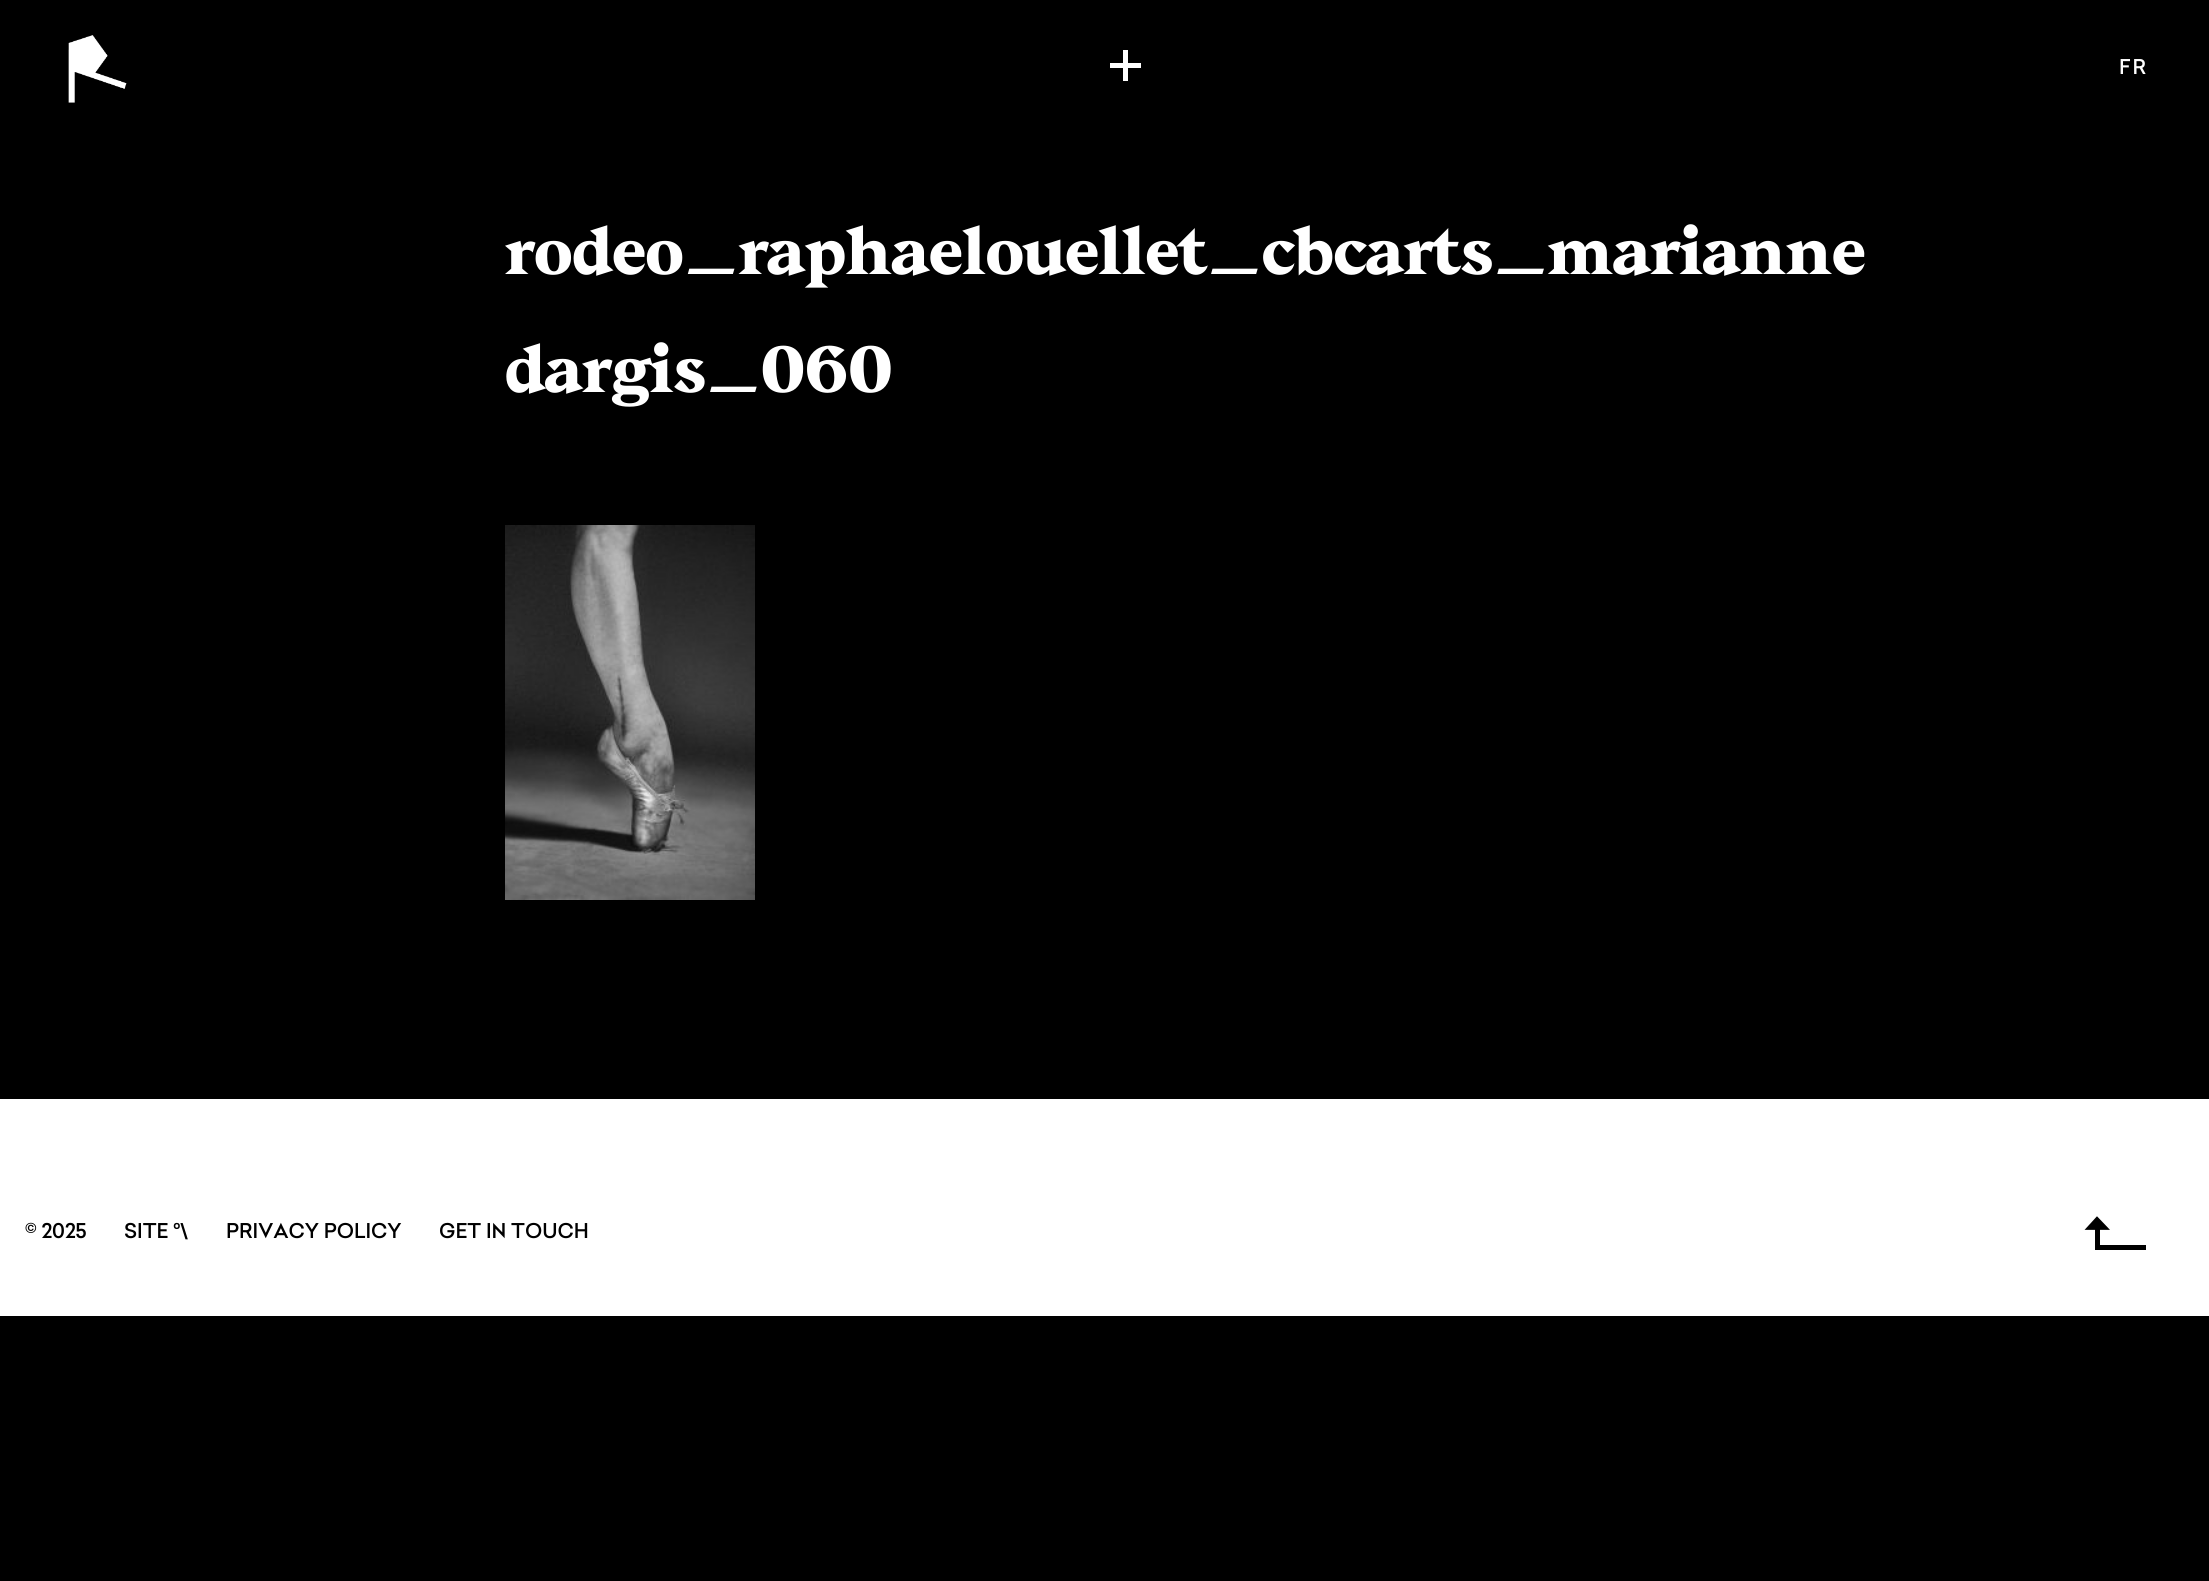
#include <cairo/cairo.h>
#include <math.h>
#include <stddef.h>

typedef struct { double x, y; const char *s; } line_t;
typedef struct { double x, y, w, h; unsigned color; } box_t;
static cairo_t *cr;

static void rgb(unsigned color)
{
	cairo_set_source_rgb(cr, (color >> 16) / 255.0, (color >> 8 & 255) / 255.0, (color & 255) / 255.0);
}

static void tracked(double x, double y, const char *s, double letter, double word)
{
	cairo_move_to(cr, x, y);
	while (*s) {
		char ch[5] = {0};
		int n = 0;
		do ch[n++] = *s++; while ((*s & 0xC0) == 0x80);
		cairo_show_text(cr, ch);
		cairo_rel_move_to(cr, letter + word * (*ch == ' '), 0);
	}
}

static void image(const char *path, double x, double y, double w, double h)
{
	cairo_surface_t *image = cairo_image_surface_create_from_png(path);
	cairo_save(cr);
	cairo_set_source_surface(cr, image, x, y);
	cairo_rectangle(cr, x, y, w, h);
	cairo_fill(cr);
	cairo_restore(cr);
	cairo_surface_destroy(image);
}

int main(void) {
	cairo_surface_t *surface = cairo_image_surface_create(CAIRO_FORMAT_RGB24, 2209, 1581);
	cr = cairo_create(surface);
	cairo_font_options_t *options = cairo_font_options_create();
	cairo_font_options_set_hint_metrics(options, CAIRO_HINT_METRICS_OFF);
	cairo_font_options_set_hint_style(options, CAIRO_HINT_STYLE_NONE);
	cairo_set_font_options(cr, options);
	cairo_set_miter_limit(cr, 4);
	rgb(0x000000);
	cairo_paint(cr);
	image("img/1.png", 68, 35, 59, 68);
	rgb(0xffffff);
	cairo_rectangle(cr, 1110, 63, 31, 5);
	cairo_fill(cr);
	cairo_rectangle(cr, 1123, 50, 5, 31);
	cairo_fill(cr);
	image("img/2.png", 505, 525, 250, 375);
	{
		static const box_t items[] = {
			{0, 1099, 2209, 217, 0xffffff},
			{2098, 1245, 48, 5, 0x000000},
			{2095, 1227, 5, 23, 0x000000},
		};
		for (size_t i = 0; i < sizeof items / sizeof *items; i++) {
			rgb(items[i].color);
			cairo_rectangle(cr, items[i].x, items[i].y, items[i].w, items[i].h);
			cairo_fill(cr);
		}
	}
	cairo_new_path(cr);
	cairo_move_to(cr, 2086.5, 1229);
	cairo_line_to(cr, 2108, 1229);
	cairo_line_to(cr, 2097, 1217.5);
	cairo_close_path(cr);
	cairo_fill_preserve(cr);
	cairo_set_line_width(cr, 1.7);
	cairo_stroke(cr);
	cairo_select_font_face(cr, "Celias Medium", CAIRO_FONT_SLANT_NORMAL, CAIRO_FONT_WEIGHT_NORMAL);
	cairo_set_font_size(cr, 20);
	rgb(0xffffff);
	tracked(2119, 74, "FR", 2, 0);
	cairo_select_font_face(cr, "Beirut", CAIRO_FONT_SLANT_NORMAL, CAIRO_FONT_WEIGHT_BOLD);
	cairo_set_font_size(cr, 67.5);
	cairo_move_to(cr, 505, 274);
	cairo_show_text(cr, "rodeo_raphaelouellet_cbcarts_marianne");
	cairo_move_to(cr, 505, 392);
	cairo_show_text(cr, "dargis_060");
	cairo_select_font_face(cr, "Celias Medium", CAIRO_FONT_SLANT_NORMAL, CAIRO_FONT_WEIGHT_NORMAL);
	cairo_set_font_size(cr, 20);
	rgb(0x000000);
	{
		static const line_t items[] = {
			{25, 1238, "© 2025"},
			{124, 1238, "SITE °\\"},
			{226, 1238, "PRIVACY POLICY"},
			{439, 1238, "GET IN TOUCH"},
		};
		for (size_t i = 0; i < sizeof items / sizeof *items; i++) {
			cairo_move_to(cr, items[i].x, items[i].y);
			cairo_show_text(cr, items[i].s);
		}
	}
	cairo_surface_write_to_png(surface, "page.png");
	cairo_font_options_destroy(options);
	cairo_destroy(cr);
	cairo_surface_destroy(surface);
	return 0;
}
